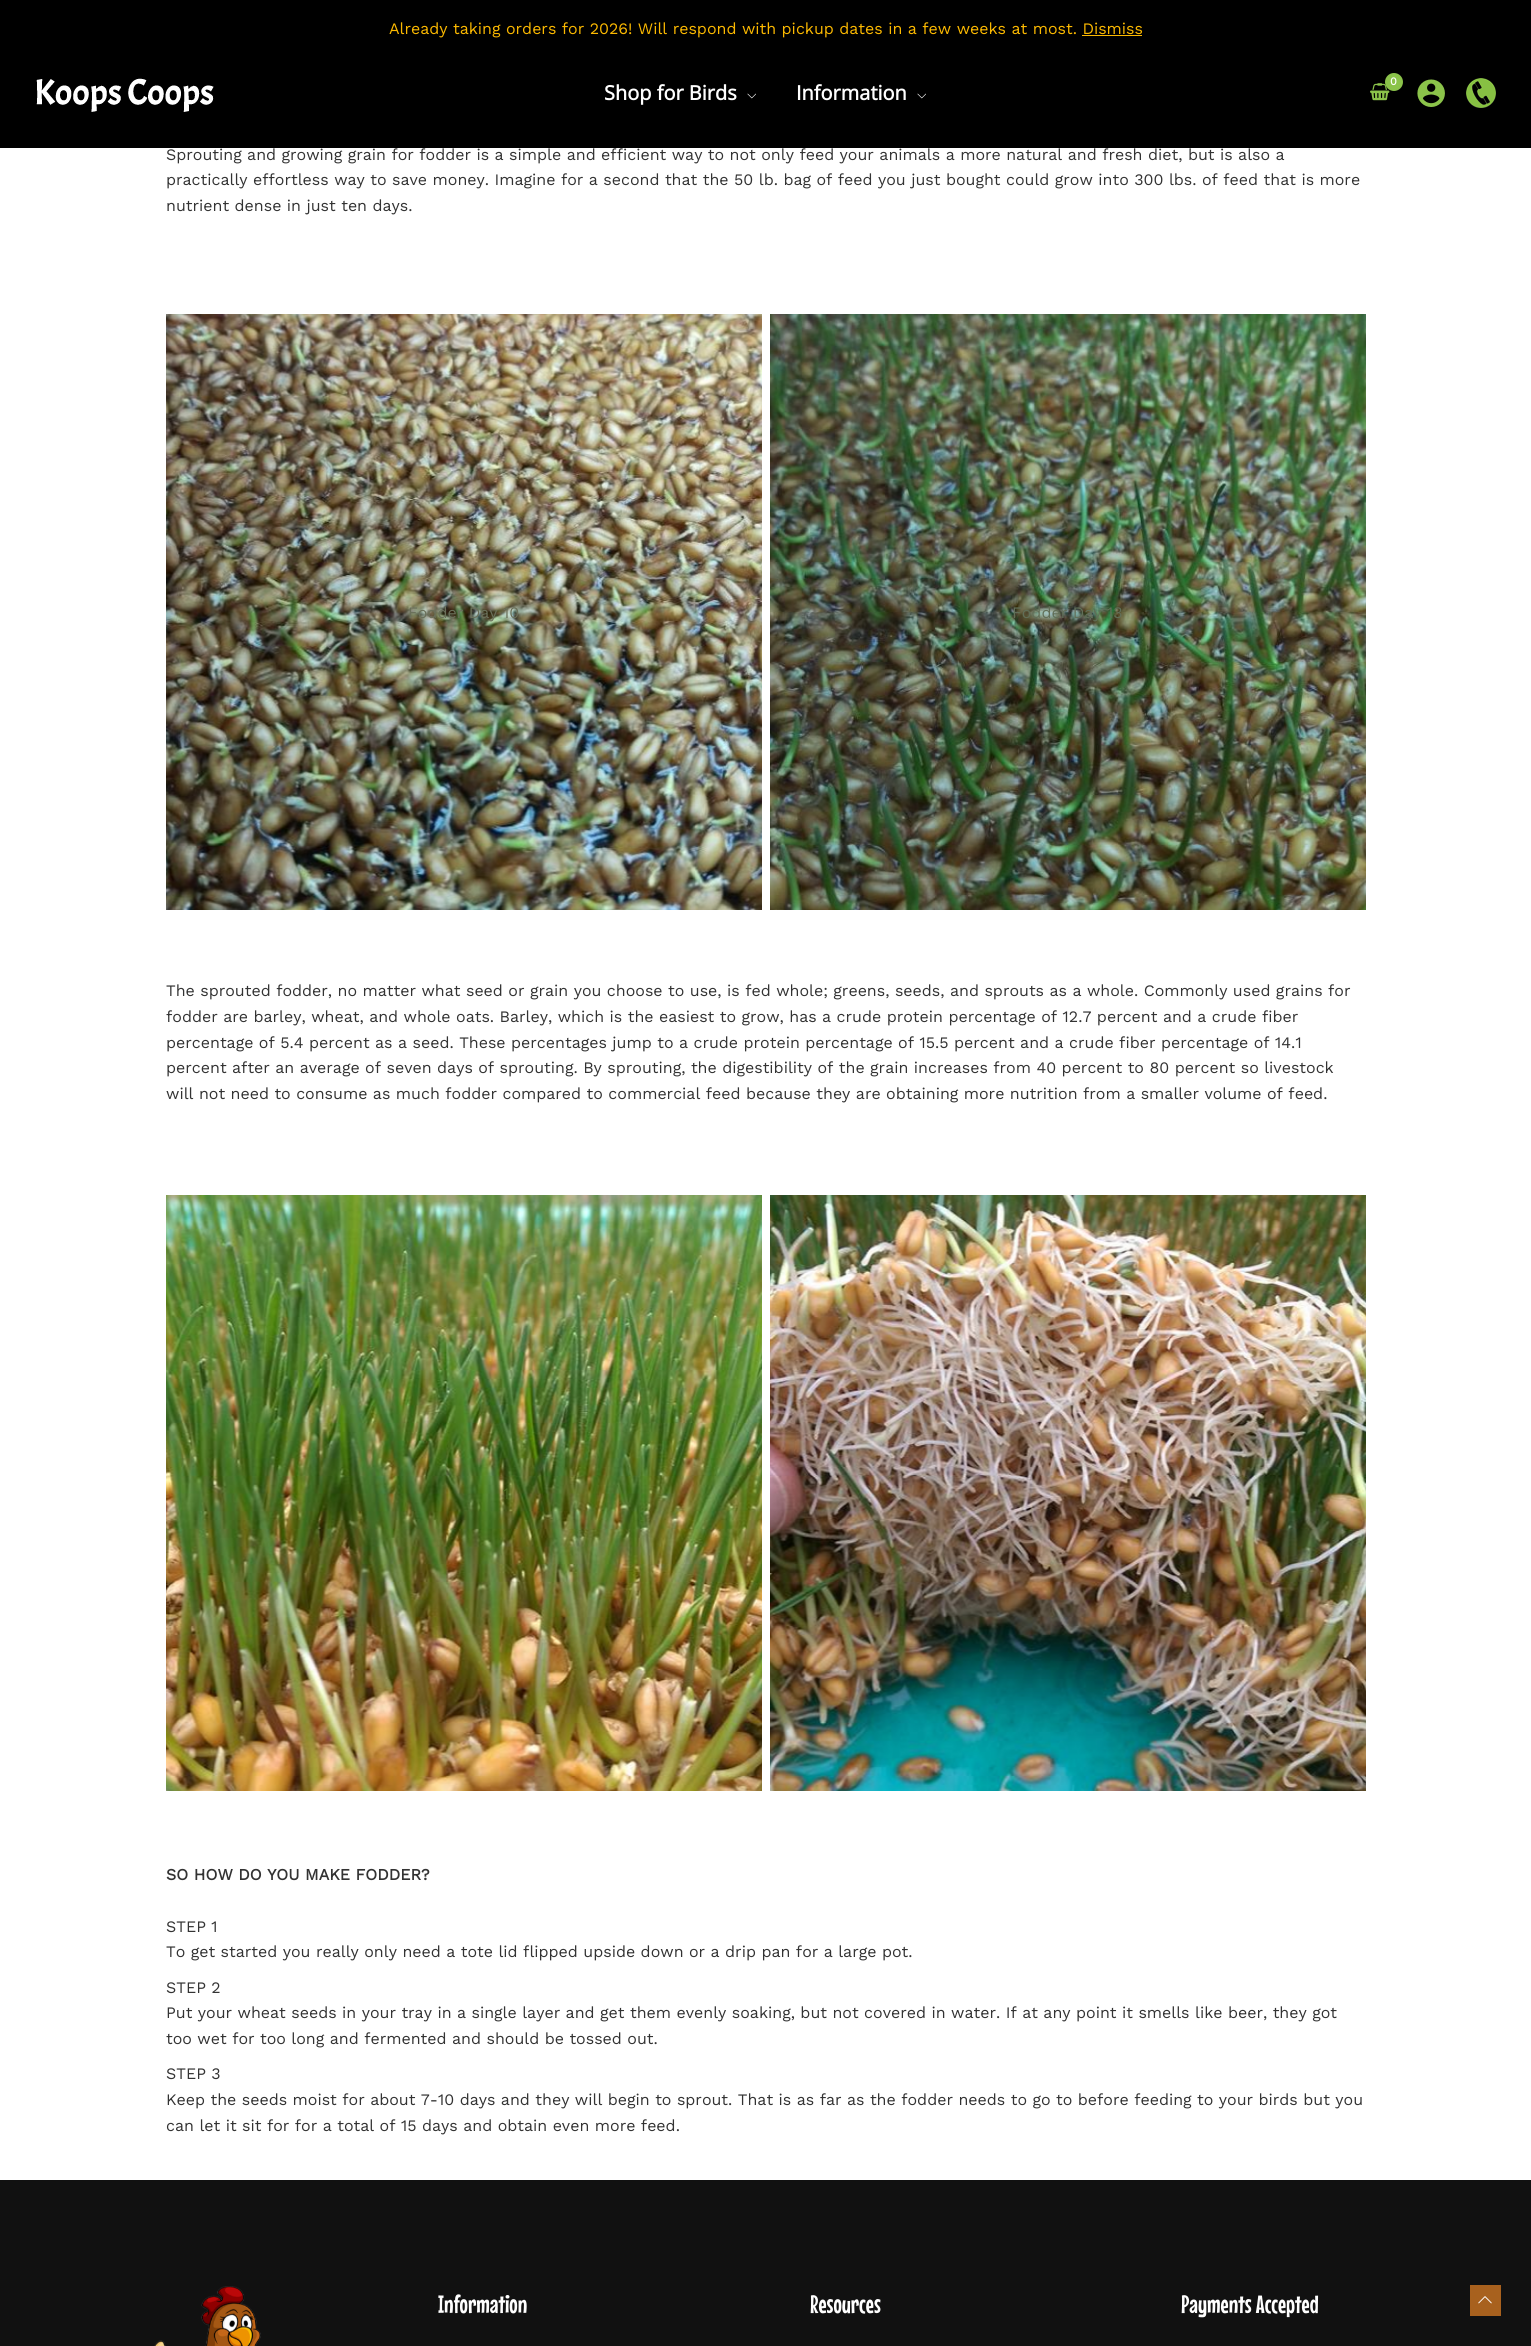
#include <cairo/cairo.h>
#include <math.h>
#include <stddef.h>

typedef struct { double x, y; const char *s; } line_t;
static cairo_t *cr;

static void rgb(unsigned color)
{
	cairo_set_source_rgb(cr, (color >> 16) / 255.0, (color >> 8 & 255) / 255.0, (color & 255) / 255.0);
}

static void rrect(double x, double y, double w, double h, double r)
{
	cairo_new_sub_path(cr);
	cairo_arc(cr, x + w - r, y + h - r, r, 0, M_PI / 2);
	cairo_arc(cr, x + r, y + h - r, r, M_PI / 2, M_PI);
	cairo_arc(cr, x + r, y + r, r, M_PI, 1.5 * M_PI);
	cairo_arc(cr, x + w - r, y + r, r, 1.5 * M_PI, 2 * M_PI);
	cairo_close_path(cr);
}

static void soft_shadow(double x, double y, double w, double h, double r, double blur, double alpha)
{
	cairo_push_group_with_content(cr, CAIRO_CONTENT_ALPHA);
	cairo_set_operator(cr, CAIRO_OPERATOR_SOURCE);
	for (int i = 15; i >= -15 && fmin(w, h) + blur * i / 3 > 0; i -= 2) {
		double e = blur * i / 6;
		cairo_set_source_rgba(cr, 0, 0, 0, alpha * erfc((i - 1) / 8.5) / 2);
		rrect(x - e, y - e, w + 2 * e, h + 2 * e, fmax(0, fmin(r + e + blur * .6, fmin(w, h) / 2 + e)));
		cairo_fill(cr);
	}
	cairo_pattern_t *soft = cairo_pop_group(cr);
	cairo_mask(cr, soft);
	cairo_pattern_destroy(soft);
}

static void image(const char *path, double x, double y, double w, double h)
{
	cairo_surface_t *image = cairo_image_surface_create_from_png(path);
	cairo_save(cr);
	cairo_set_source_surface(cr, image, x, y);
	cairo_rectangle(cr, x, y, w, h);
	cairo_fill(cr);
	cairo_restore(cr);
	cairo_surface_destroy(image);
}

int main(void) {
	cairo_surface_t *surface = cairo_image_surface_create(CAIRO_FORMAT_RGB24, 1531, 2346);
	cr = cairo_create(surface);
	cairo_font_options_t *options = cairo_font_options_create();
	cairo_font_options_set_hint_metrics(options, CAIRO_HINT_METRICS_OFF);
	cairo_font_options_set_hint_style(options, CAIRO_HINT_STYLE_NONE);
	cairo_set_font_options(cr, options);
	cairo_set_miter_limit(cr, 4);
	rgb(0xffffff);
	cairo_paint(cr);
	rgb(0x000000);
	cairo_rectangle(cr, 0, 0, 1531, 148);
	cairo_fill(cr);
	rgb(0xfcb900);
	cairo_rectangle(cr, 1082, 35, 60, 1);
	cairo_fill(cr);
	image("img/1.png", 36, 78, 178, 34);
	image("img/2.png", 747, 93, 9, 6);
	image("img/2.png", 917, 93, 9, 6);
	image("img/3.png", 1370, 83, 20, 18);
	rgb(0x000000);
	soft_shadow(1386, 74, 18, 18, 9, 1.5, 0.3);
	rgb(0x8bc34a);
	cairo_arc(cr, 1394, 82, 9, 0, 2 * M_PI);
	cairo_fill(cr);
	image("img/4.png", 1417, 79, 28, 28);
	image("img/5.png", 1466, 78, 30, 30);
	image("img/6.png", 166, 314, 596, 596);
	image("img/7.png", 770, 314, 596, 596);
	image("img/8.png", 166, 1195, 596, 596);
	image("img/9.png", 770, 1195, 596, 596);
	rgb(0x111111);
	cairo_rectangle(cr, 0, 2180, 1531, 166);
	cairo_fill(cr);
	image("img/10.png", 154, 2286, 107, 60);
	rgb(0xa8611e);
	cairo_rectangle(cr, 1470, 2285, 31, 31);
	cairo_fill(cr);
	image("img/11.png", 1478, 2296, 14, 8);
	cairo_select_font_face(cr, "Work Sans", CAIRO_FONT_SLANT_NORMAL, CAIRO_FONT_WEIGHT_NORMAL);
	cairo_set_font_size(cr, 16);
	rgb(0xfcb900);
	cairo_move_to(cr, 389, 34);
	cairo_show_text(cr, "Already taking orders for 2026! Will respond with pickup dates in a few weeks at most. Dismiss");
	cairo_select_font_face(cr, "Open Sans", CAIRO_FONT_SLANT_NORMAL, CAIRO_FONT_WEIGHT_BOLD);
	cairo_set_font_size(cr, 20);
	rgb(0xffffff);
	cairo_move_to(cr, 604, 100);
	cairo_show_text(cr, "Shop for Birds");
	cairo_move_to(cr, 796, 100);
	cairo_show_text(cr, "Information");
	cairo_select_font_face(cr, "Work Sans", CAIRO_FONT_SLANT_NORMAL, CAIRO_FONT_WEIGHT_BOLD);
	cairo_set_font_size(cr, 11);
	cairo_move_to(cr, 1390, 85);
	cairo_show_text(cr, "0");
	cairo_select_font_face(cr, "Work Sans", CAIRO_FONT_SLANT_NORMAL, CAIRO_FONT_WEIGHT_NORMAL);
	cairo_set_font_size(cr, 16);
	rgb(0x333333);
	{
		static const line_t items[] = {
			{166, 160, "Sprouting and growing grain for fodder is a simple and efficient way to not only feed your animals a more natural and fresh diet, but is also a"},
			{166, 185, "practically effortless way to save money. Imagine for a second that the 50 lb. bag of feed you just bought could grow into 300 lbs. of feed that is more"},
			{166, 211, "nutrient dense in just ten days."},
		};
		for (size_t i = 0; i < sizeof items / sizeof *items; i++) {
			cairo_move_to(cr, items[i].x, items[i].y);
			cairo_show_text(cr, items[i].s);
		}
	}
	rgb(0x6a705a);
	cairo_move_to(cr, 408, 618);
	cairo_show_text(cr, "Fodder Day 10");
	rgb(0x616f58);
	cairo_move_to(cr, 1012, 618);
	cairo_show_text(cr, "Fodder Day 13");
	rgb(0x333333);
	{
		static const line_t items[] = {
			{166, 996, "The sprouted fodder, no matter what seed or grain you choose to use, is fed whole; greens, seeds, and sprouts as a whole. Commonly used grains for"},
			{166, 1022, "fodder are barley, wheat, and whole oats. Barley, which is the easiest to grow, has a crude protein percentage of 12.7 percent and a crude fiber"},
			{166, 1048, "percentage of 5.4 percent as a seed. These percentages jump to a crude protein percentage of 15.5 percent and a crude fiber percentage of 14.1"},
			{166, 1073, "percent after an average of seven days of sprouting. By sprouting, the digestibility of the grain increases from 40 percent to 80 percent so livestock"},
			{166, 1099, "will not need to consume as much fodder compared to commercial feed because they are obtaining more nutrition from a smaller volume of feed."},
		};
		for (size_t i = 0; i < sizeof items / sizeof *items; i++) {
			cairo_move_to(cr, items[i].x, items[i].y);
			cairo_show_text(cr, items[i].s);
		}
	}
	rgb(0x4d6b23);
	cairo_move_to(cr, 503, 1499);
	cairo_show_text(cr, "1");
	cairo_select_font_face(cr, "Work Sans", CAIRO_FONT_SLANT_NORMAL, CAIRO_FONT_WEIGHT_BOLD);
	rgb(0x333333);
	cairo_move_to(cr, 166, 1880);
	cairo_show_text(cr, "SO HOW DO YOU MAKE FODDER?");
	cairo_select_font_face(cr, "Work Sans", CAIRO_FONT_SLANT_NORMAL, CAIRO_FONT_WEIGHT_NORMAL);
	{
		static const line_t items[] = {
			{166, 1932, "STEP 1"},
			{166, 1957, "To get started you really only need a tote lid flipped upside down or a drip pan for a large pot."},
			{166, 1993, "STEP 2"},
			{166, 2018, "Put your wheat seeds in your tray in a single layer and get them evenly soaking, but not covered in water. If at any point it smells like beer, they got"},
			{166, 2044, "too wet for too long and fermented and should be tossed out."},
			{166, 2079, "STEP 3"},
			{166, 2105, "Keep the seeds moist for about 7-10 days and they will begin to sprout. That is as far as the fodder needs to go to before feeding to your birds but you"},
			{166, 2131, "can let it sit for for a total of 15 days and obtain even more feed."},
		};
		for (size_t i = 0; i < sizeof items / sizeof *items; i++) {
			cairo_move_to(cr, items[i].x, items[i].y);
			cairo_show_text(cr, items[i].s);
		}
	}
	cairo_select_font_face(cr, "Mouse Memoirs", CAIRO_FONT_SLANT_NORMAL, CAIRO_FONT_WEIGHT_NORMAL);
	cairo_set_font_size(cr, 25);
	rgb(0xffffff);
	{
		static const line_t items[] = {
			{438, 2313, "Information"},
			{810, 2313, "Resources"},
			{1181, 2313, "Payments Accepted"},
		};
		for (size_t i = 0; i < sizeof items / sizeof *items; i++) {
			cairo_move_to(cr, items[i].x, items[i].y);
			cairo_show_text(cr, items[i].s);
		}
	}
	cairo_surface_write_to_png(surface, "page.png");
	cairo_font_options_destroy(options);
	cairo_destroy(cr);
	cairo_surface_destroy(surface);
	return 0;
}
